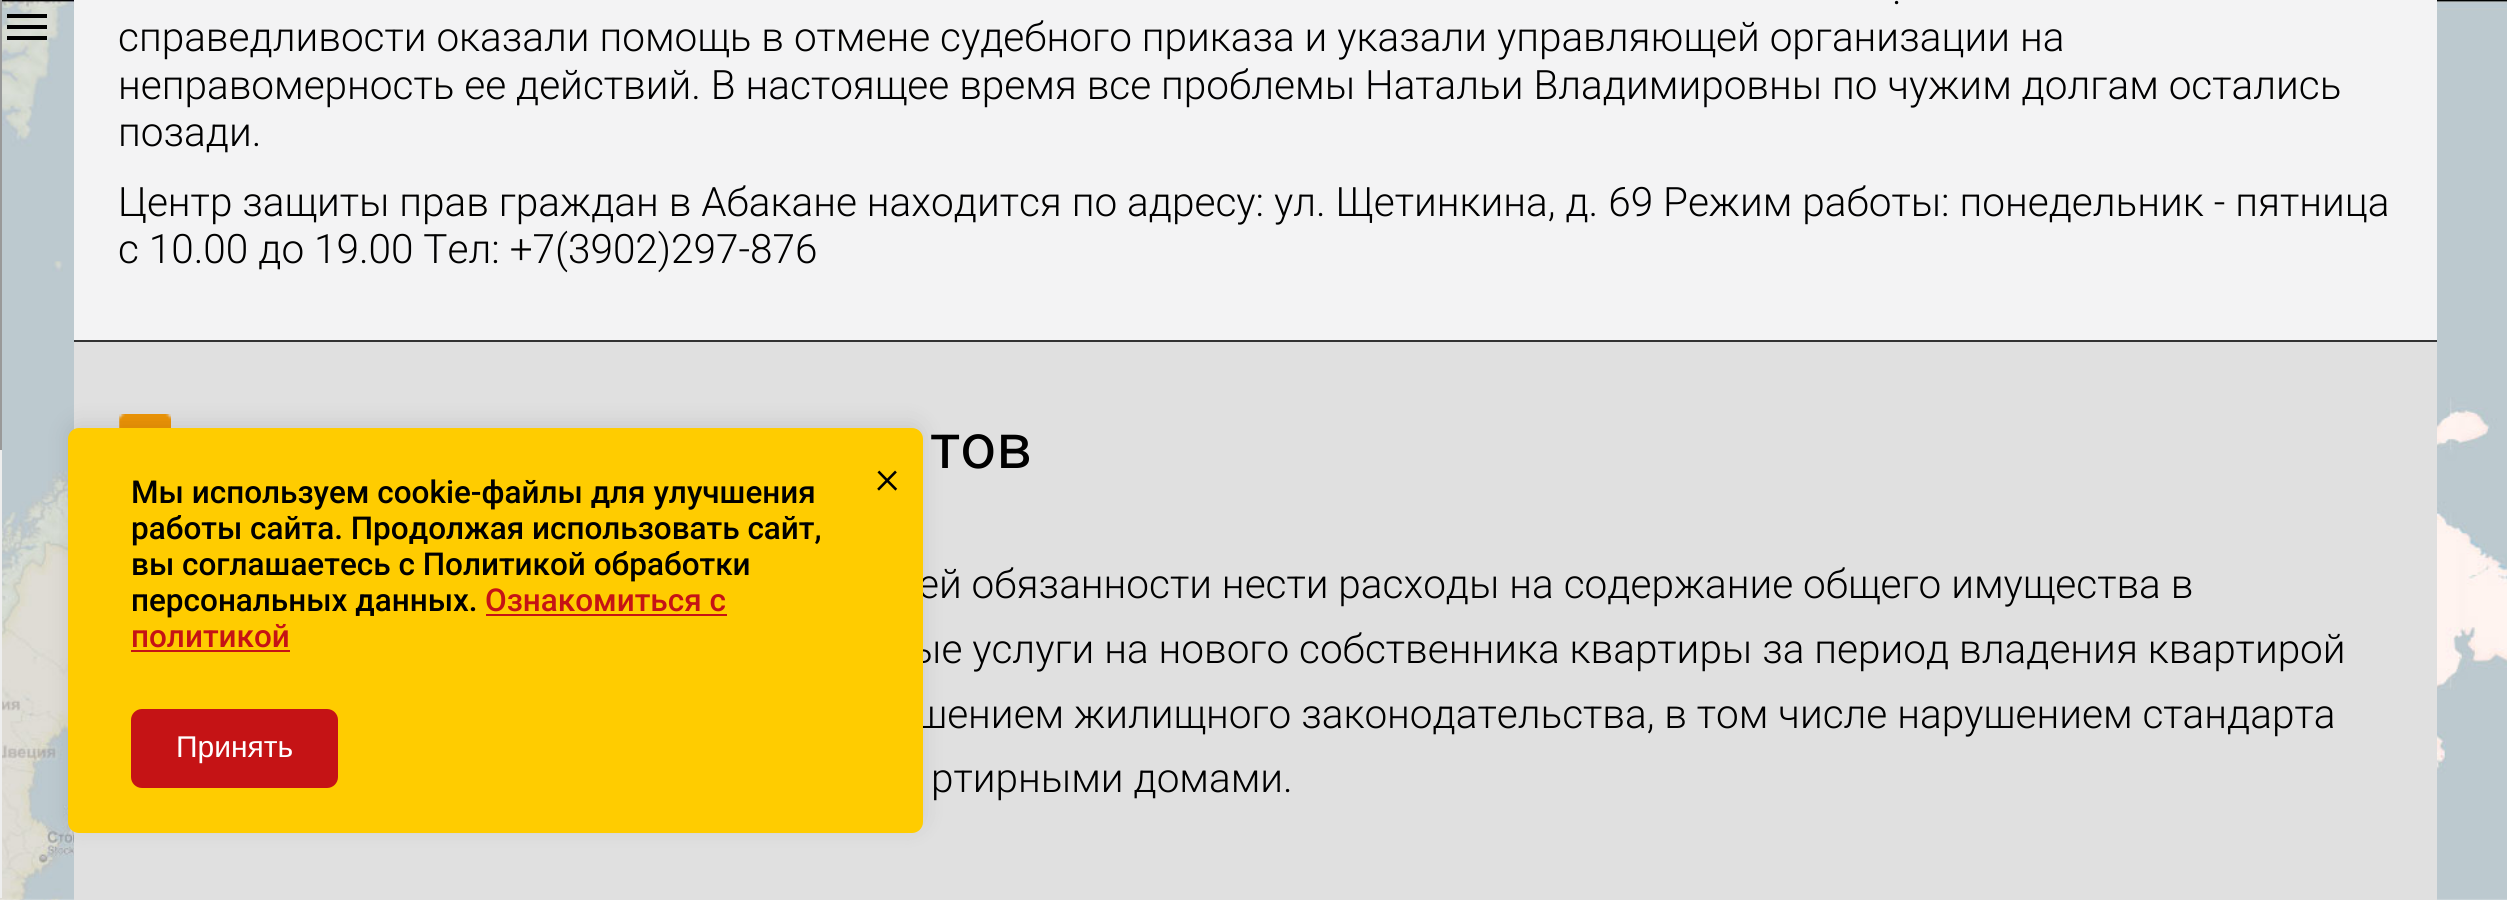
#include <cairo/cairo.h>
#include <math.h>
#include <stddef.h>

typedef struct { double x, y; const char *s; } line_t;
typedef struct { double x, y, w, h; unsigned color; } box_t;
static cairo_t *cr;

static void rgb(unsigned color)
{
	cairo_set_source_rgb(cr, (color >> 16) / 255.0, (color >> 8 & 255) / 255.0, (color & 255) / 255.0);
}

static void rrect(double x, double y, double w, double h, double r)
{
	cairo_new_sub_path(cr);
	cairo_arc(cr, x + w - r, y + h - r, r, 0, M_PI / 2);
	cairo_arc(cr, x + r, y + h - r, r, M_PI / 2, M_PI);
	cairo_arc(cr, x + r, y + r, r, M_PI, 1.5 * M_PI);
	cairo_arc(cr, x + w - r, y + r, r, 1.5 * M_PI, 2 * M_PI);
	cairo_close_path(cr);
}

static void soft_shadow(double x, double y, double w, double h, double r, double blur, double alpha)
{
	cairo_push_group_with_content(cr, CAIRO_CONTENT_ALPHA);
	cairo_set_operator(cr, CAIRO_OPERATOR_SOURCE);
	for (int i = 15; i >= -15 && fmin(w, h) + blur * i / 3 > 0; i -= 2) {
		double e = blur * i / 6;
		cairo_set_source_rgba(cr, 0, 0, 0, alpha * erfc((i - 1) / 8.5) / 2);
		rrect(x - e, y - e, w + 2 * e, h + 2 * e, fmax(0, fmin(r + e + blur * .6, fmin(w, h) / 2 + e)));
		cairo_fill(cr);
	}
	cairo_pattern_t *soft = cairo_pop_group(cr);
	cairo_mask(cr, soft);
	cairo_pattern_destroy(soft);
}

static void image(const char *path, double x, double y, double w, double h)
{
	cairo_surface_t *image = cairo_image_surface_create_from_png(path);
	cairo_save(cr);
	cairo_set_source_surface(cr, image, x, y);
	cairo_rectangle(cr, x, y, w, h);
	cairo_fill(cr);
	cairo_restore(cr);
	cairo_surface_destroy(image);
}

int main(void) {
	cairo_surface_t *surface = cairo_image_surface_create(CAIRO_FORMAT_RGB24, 2507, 900);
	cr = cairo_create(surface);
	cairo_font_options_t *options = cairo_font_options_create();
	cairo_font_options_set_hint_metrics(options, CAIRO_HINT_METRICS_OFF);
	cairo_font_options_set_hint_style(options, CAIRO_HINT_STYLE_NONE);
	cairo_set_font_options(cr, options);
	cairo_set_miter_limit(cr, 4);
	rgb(0xffffff);
	cairo_paint(cr);
	image("img/1.png", 0, 0, 2507, 900);
	rgb(0xeeeeee);
	cairo_rectangle(cr, 0, 450, 2, 448);
	cairo_fill(cr);
	rgb(0x999999);
	cairo_rectangle(cr, 0, 0, 2, 450);
	cairo_fill(cr);
	rgb(0x000000);
	cairo_new_path(cr);
	cairo_move_to(cr, 7, 14);
	cairo_line_to(cr, 47, 14);
	cairo_line_to(cr, 47, 18);
	cairo_line_to(cr, 7, 18);
	cairo_close_path(cr);
	cairo_move_to(cr, 7, 29);
	cairo_line_to(cr, 7, 25);
	cairo_line_to(cr, 47, 25);
	cairo_line_to(cr, 47, 29);
	cairo_close_path(cr);
	cairo_move_to(cr, 7, 40);
	cairo_line_to(cr, 7, 36);
	cairo_line_to(cr, 47, 36);
	cairo_line_to(cr, 47, 40);
	cairo_close_path(cr);
	cairo_fill(cr);
	{
		static const box_t items[] = {
			{74, 0, 2363, 340, 0xf3f3f4},
			{74, 342, 2363, 558, 0xe0e0e0},
			{74, 340, 2363, 2, 0x333333},
		};
		for (size_t i = 0; i < sizeof items / sizeof *items; i++) {
			rgb(items[i].color);
			cairo_rectangle(cr, items[i].x, items[i].y, items[i].w, items[i].h);
			cairo_fill(cr);
		}
	}
	image("img/2.png", 119, 414, 52, 14);
	rgb(0x000000);
	soft_shadow(68, 423, 855, 405, 11, 11, 0.1);
	cairo_select_font_face(cr, "Roboto Light", CAIRO_FONT_SLANT_NORMAL, CAIRO_FONT_WEIGHT_NORMAL);
	cairo_set_font_size(cr, 40.5);
	rgb(0x000000);
	{
		static const line_t items[] = {
			{1892, 4, "."},
			{118, 51, "справедливости оказали помощь в отмене судебного приказа и указали управляющей организации на"},
			{118, 99, "неправомерность ее действий. В настоящее время все проблемы Натальи Владимировны по чужим долгам остались"},
			{118, 146, "позади."},
			{118, 216, "Центр защиты прав граждан в Абакане находится по адресу: ул. Щетинкина, д. 69 Режим работы: понедельник - пятница"},
			{118, 263, "с 10.00 до 19.00 Тел: +7(3902)297-876"},
		};
		for (size_t i = 0; i < sizeof items / sizeof *items; i++) {
			cairo_move_to(cr, items[i].x, items[i].y);
			cairo_show_text(cr, items[i].s);
		}
	}
	cairo_select_font_face(cr, "Roboto", CAIRO_FONT_SLANT_NORMAL, CAIRO_FONT_WEIGHT_NORMAL);
	cairo_set_font_size(cr, 63);
	cairo_move_to(cr, 930, 468);
	cairo_show_text(cr, "тов");
	cairo_select_font_face(cr, "Roboto Light", CAIRO_FONT_SLANT_NORMAL, CAIRO_FONT_WEIGHT_NORMAL);
	cairo_set_font_size(cr, 40.5);
	{
		static const line_t items[] = {
			{918, 598, "ей обязанности нести расходы на содержание общего имущества в"},
			{911, 663, "ые услуги на нового собственника квартиры за период владения квартирой"},
			{915, 728, "шением жилищного законодательства, в том числе нарушением стандарта"},
			{931, 792, "ртирными домами."},
		};
		for (size_t i = 0; i < sizeof items / sizeof *items; i++) {
			cairo_move_to(cr, items[i].x, items[i].y);
			cairo_show_text(cr, items[i].s);
		}
	}
	rgb(0xffcc00);
	rrect(68, 428, 855, 405, 11);
	cairo_fill(cr);
	cairo_select_font_face(cr, "Roboto Medium", CAIRO_FONT_SLANT_NORMAL, CAIRO_FONT_WEIGHT_NORMAL);
	cairo_set_font_size(cr, 31.5);
	rgb(0x000000);
	{
		static const line_t items[] = {
			{131, 503, "Мы используем cookie-файлы для улучшения"},
			{131, 539, "работы сайта. Продолжая использовать сайт,"},
			{131, 575, "вы соглашаетесь с Политикой обработки"},
			{131, 611, "персональных данных."},
		};
		for (size_t i = 0; i < sizeof items / sizeof *items; i++) {
			cairo_move_to(cr, items[i].x, items[i].y);
			cairo_show_text(cr, items[i].s);
		}
	}
	rgb(0xc51315);
	cairo_move_to(cr, 485, 611);
	cairo_show_text(cr, "Ознакомиться с");
	cairo_rectangle(cr, 486, 614, 241, 2);
	cairo_fill(cr);
	cairo_move_to(cr, 131, 647);
	cairo_show_text(cr, "политикой");
	cairo_rectangle(cr, 131, 650, 159, 2);
	cairo_fill(cr);
	cairo_select_font_face(cr, "Roboto Light", CAIRO_FONT_SLANT_NORMAL, CAIRO_FONT_WEIGHT_NORMAL);
	cairo_set_font_size(cr, 47);
	rgb(0x000000);
	cairo_move_to(cr, 875, 493);
	cairo_show_text(cr, "×");
	rgb(0xc51315);
	rrect(131, 709, 207, 79, 11);
	cairo_fill(cr);
	cairo_select_font_face(cr, "Liberation Sans", CAIRO_FONT_SLANT_NORMAL, CAIRO_FONT_WEIGHT_NORMAL);
	cairo_set_font_size(cr, 30);
	rgb(0xffffff);
	cairo_move_to(cr, 176, 757);
	cairo_show_text(cr, "Принять");
	cairo_surface_write_to_png(surface, "page.png");
	cairo_font_options_destroy(options);
	cairo_destroy(cr);
	cairo_surface_destroy(surface);
	return 0;
}
